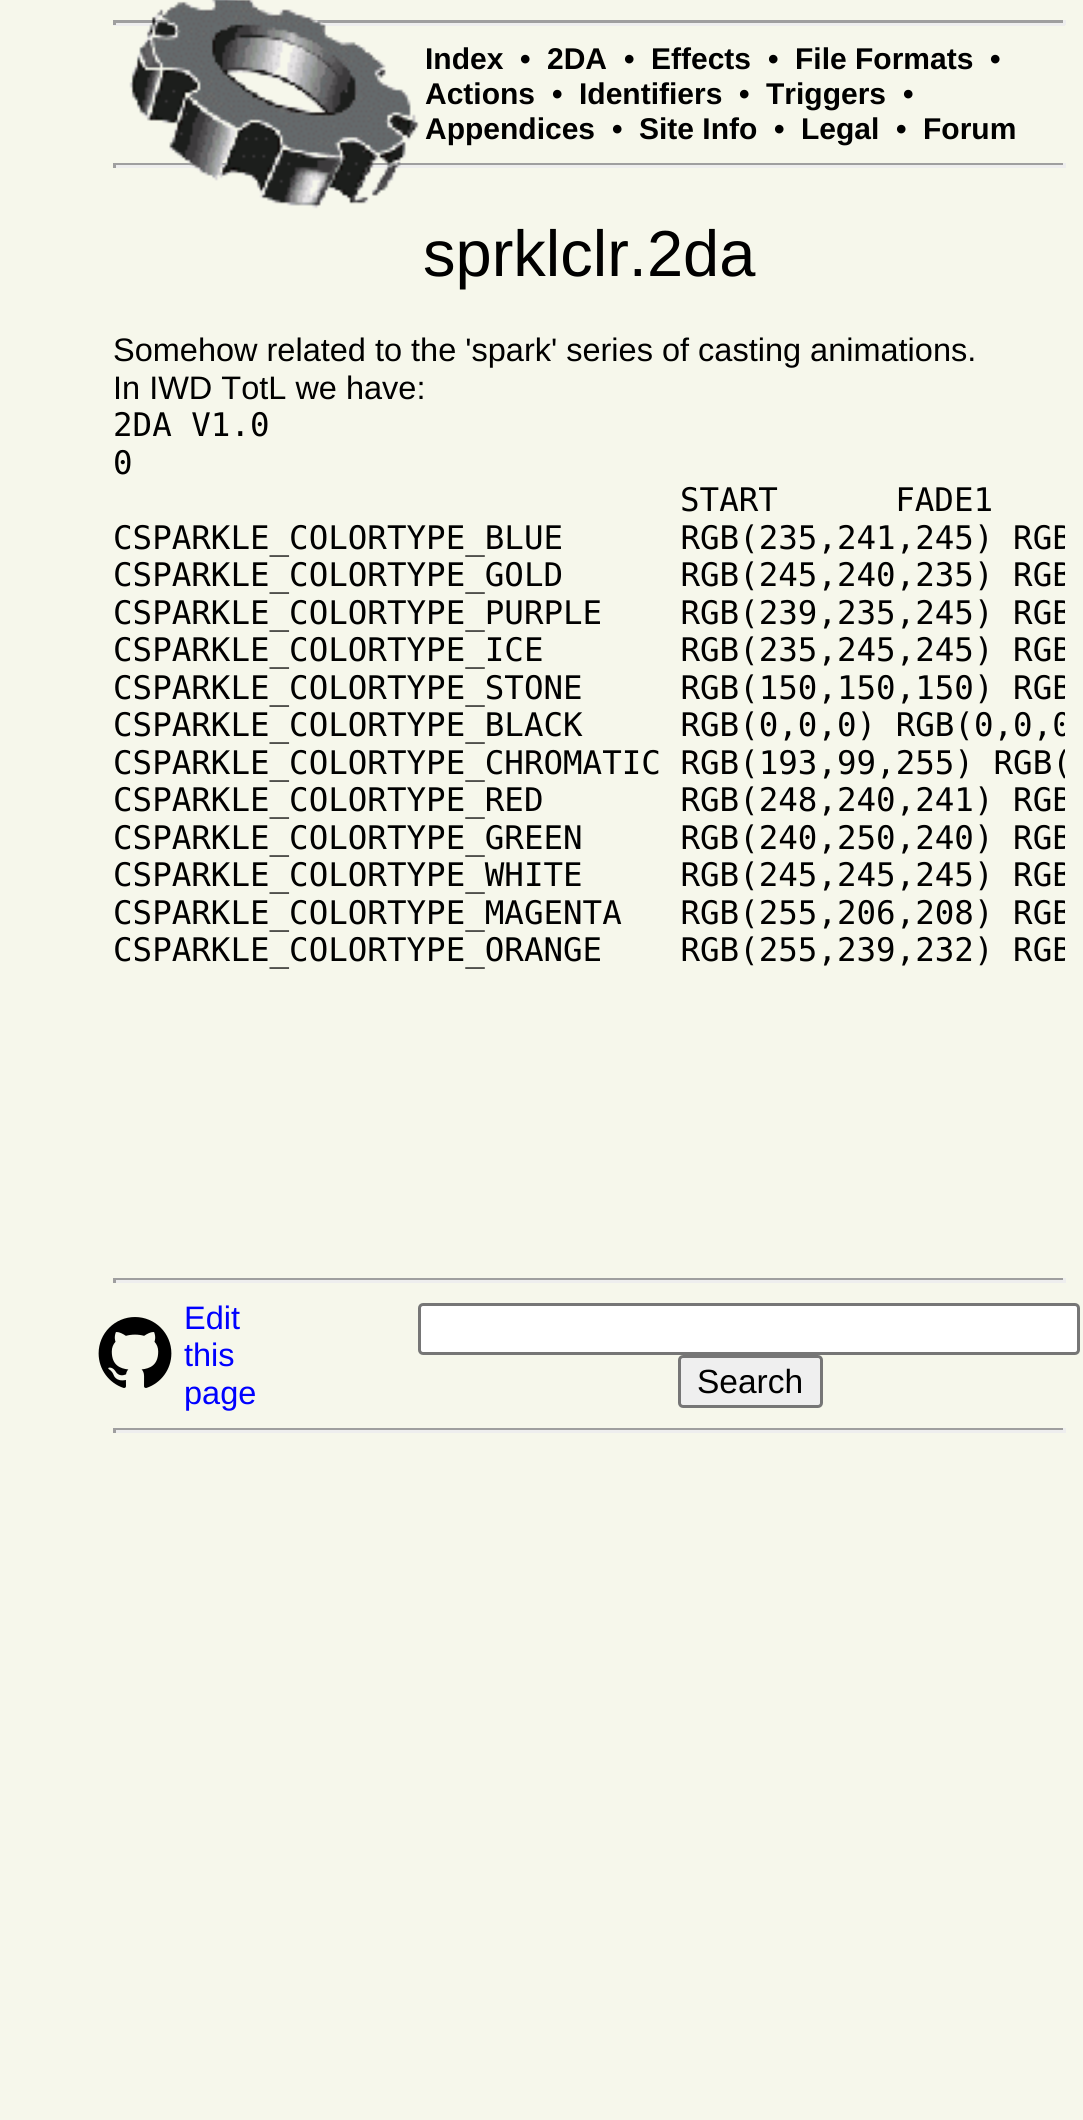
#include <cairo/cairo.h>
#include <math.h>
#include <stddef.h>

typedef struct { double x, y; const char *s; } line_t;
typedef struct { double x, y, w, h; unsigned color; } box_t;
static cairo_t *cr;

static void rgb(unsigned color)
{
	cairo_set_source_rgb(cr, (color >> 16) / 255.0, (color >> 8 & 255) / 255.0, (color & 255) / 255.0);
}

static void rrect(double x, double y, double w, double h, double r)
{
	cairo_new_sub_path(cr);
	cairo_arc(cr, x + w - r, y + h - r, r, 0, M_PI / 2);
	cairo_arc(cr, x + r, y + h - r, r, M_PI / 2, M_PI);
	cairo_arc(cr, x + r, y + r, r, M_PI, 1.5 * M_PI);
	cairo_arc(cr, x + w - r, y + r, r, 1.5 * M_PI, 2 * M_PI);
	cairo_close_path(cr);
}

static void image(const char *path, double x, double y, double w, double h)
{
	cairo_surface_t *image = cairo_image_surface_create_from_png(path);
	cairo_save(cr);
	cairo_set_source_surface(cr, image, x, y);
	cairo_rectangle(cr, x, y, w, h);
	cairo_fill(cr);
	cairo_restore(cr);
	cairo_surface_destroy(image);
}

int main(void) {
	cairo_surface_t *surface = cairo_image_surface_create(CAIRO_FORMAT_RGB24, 1083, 2120);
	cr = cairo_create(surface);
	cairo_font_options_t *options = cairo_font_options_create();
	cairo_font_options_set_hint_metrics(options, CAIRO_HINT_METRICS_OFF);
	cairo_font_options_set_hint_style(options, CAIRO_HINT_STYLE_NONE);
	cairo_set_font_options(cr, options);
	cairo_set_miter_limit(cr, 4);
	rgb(0xf6f7eb);
	cairo_paint(cr);
	{
		static const box_t items[] = {
			{113, 20, 952, 3, 0x9f9f9f},
			{1063, 20, 3, 5, 0xeeeeee},
			{113, 23, 952, 3, 0xeeeeee},
			{113, 163, 952, 2, 0x9f9f9f},
			{1063, 163, 3, 5, 0xeeeeee},
			{113, 165, 952, 3, 0xeeeeee},
		};
		for (size_t i = 0; i < sizeof items / sizeof *items; i++) {
			rgb(items[i].color);
			cairo_rectangle(cr, items[i].x, items[i].y, items[i].w, items[i].h);
			cairo_fill(cr);
		}
	}
	image("img/1.png", 129, 0, 290, 209);
	{
		static const box_t items[] = {
			{113, 20, 3, 5, 0x9f9f9f},
			{113, 163, 3, 5, 0x9f9f9f},
			{113, 1278, 952, 2, 0x9f9f9f},
			{1063, 1278, 3, 5, 0xeeeeee},
			{113, 1280, 952, 3, 0xeeeeee},
			{113, 1278, 3, 5, 0x9f9f9f},
		};
		for (size_t i = 0; i < sizeof items / sizeof *items; i++) {
			rgb(items[i].color);
			cairo_rectangle(cr, items[i].x, items[i].y, items[i].w, items[i].h);
			cairo_fill(cr);
		}
	}
	image("img/2.png", 98, 1317, 74, 71);
	rgb(0xffffff);
	rrect(419.5, 1304.5, 659, 49, 3.5);
	cairo_fill_preserve(cr);
	rgb(0x767676);
	cairo_set_line_width(cr, 3);
	cairo_stroke(cr);
	rgb(0xefefef);
	rrect(679.5, 1356.5, 142, 50, 3.5);
	cairo_fill_preserve(cr);
	rgb(0x767676);
	cairo_stroke(cr);
	{
		static const box_t items[] = {
			{113, 1428, 952, 2, 0x9f9f9f},
			{1063, 1428, 3, 5, 0xeeeeee},
			{113, 1430, 952, 3, 0xeeeeee},
			{113, 1428, 3, 5, 0x9f9f9f},
		};
		for (size_t i = 0; i < sizeof items / sizeof *items; i++) {
			rgb(items[i].color);
			cairo_rectangle(cr, items[i].x, items[i].y, items[i].w, items[i].h);
			cairo_fill(cr);
		}
	}
	cairo_select_font_face(cr, "Liberation Sans", CAIRO_FONT_SLANT_NORMAL, CAIRO_FONT_WEIGHT_BOLD);
	cairo_set_font_size(cr, 30);
	rgb(0x000000);
	{
		static const line_t items[] = {
			{425, 69, "Index"},
			{520, 69, "•"},
			{547, 69, "2DA"},
			{624, 69, "•"},
			{651, 69, "Effects"},
			{768, 69, "•"},
			{795, 69, "File Formats"},
			{990, 69, "•"},
			{425, 104, "Actions"},
			{552, 104, "•"},
			{579, 104, "Identifiers"},
			{739, 104, "•"},
			{766, 104, "Triggers"},
			{903, 104, "•"},
			{425, 139, "Appendices"},
			{612, 139, "•"},
			{639, 139, "Site Info"},
			{774, 139, "•"},
			{801, 139, "Legal"},
			{896, 139, "•"},
			{923, 139, "Forum"},
		};
		for (size_t i = 0; i < sizeof items / sizeof *items; i++) {
			cairo_move_to(cr, items[i].x, items[i].y);
			cairo_show_text(cr, items[i].s);
		}
	}
	cairo_select_font_face(cr, "Liberation Sans", CAIRO_FONT_SLANT_NORMAL, CAIRO_FONT_WEIGHT_NORMAL);
	cairo_set_font_size(cr, 65);
	cairo_move_to(cr, 423, 276);
	cairo_show_text(cr, "sprklclr.2da");
	cairo_set_font_size(cr, 32.5);
	cairo_move_to(cr, 113, 361);
	cairo_show_text(cr, "Somehow related to the 'spark' series of casting animations.");
	cairo_move_to(cr, 113, 399);
	cairo_show_text(cr, "In IWD TotL we have:");
	cairo_select_font_face(cr, "DejaVu Sans Mono", CAIRO_FONT_SLANT_NORMAL, CAIRO_FONT_WEIGHT_NORMAL);
	{
		static const line_t items[] = {
			{113, 436, "2DA V1.0"},
			{113, 474, "0"},
			{680, 511, "START      FADE1"},
		};
		for (size_t i = 0; i < sizeof items / sizeof *items; i++) {
			cairo_move_to(cr, items[i].x, items[i].y);
			cairo_show_text(cr, items[i].s);
		}
	}
	cairo_save(cr);
	cairo_rectangle(cr, 113, 408, 952, 595);
	cairo_clip(cr);
	{
		static const line_t items[] = {
			{113, 549, "CSPARKLE_COLORTYPE_BLUE      RGB(235,241,245) RGB"},
			{113, 586, "CSPARKLE_COLORTYPE_GOLD      RGB(245,240,235) RGB"},
			{113, 624, "CSPARKLE_COLORTYPE_PURPLE    RGB(239,235,245) RGB"},
			{113, 661, "CSPARKLE_COLORTYPE_ICE       RGB(235,245,245) RGB"},
			{113, 699, "CSPARKLE_COLORTYPE_STONE     RGB(150,150,150) RGB"},
			{113, 736, "CSPARKLE_COLORTYPE_BLACK     RGB(0,0,0) RGB(0,0,0"},
			{113, 774, "CSPARKLE_COLORTYPE_CHROMATIC RGB(193,99,255) RGB("},
			{113, 811, "CSPARKLE_COLORTYPE_RED       RGB(248,240,241) RGB"},
			{113, 849, "CSPARKLE_COLORTYPE_GREEN     RGB(240,250,240) RGB"},
			{113, 886, "CSPARKLE_COLORTYPE_WHITE     RGB(245,245,245) RGB"},
			{113, 924, "CSPARKLE_COLORTYPE_MAGENTA   RGB(255,206,208) RGB"},
			{113, 961, "CSPARKLE_COLORTYPE_ORANGE    RGB(255,239,232) RGB"},
		};
		for (size_t i = 0; i < sizeof items / sizeof *items; i++) {
			cairo_move_to(cr, items[i].x, items[i].y);
			cairo_show_text(cr, items[i].s);
		}
	}
	cairo_restore(cr);
	cairo_select_font_face(cr, "Liberation Sans", CAIRO_FONT_SLANT_NORMAL, CAIRO_FONT_WEIGHT_NORMAL);
	rgb(0x0000ff);
	{
		static const line_t items[] = {
			{184, 1329, "Edit"},
			{184, 1366, "this"},
			{184, 1404, "page"},
		};
		for (size_t i = 0; i < sizeof items / sizeof *items; i++) {
			cairo_move_to(cr, items[i].x, items[i].y);
			cairo_show_text(cr, items[i].s);
		}
	}
	cairo_set_font_size(cr, 33.5);
	rgb(0x000000);
	cairo_move_to(cr, 697, 1393);
	cairo_show_text(cr, "Search");
	cairo_surface_write_to_png(surface, "page.png");
	cairo_font_options_destroy(options);
	cairo_destroy(cr);
	cairo_surface_destroy(surface);
	return 0;
}
